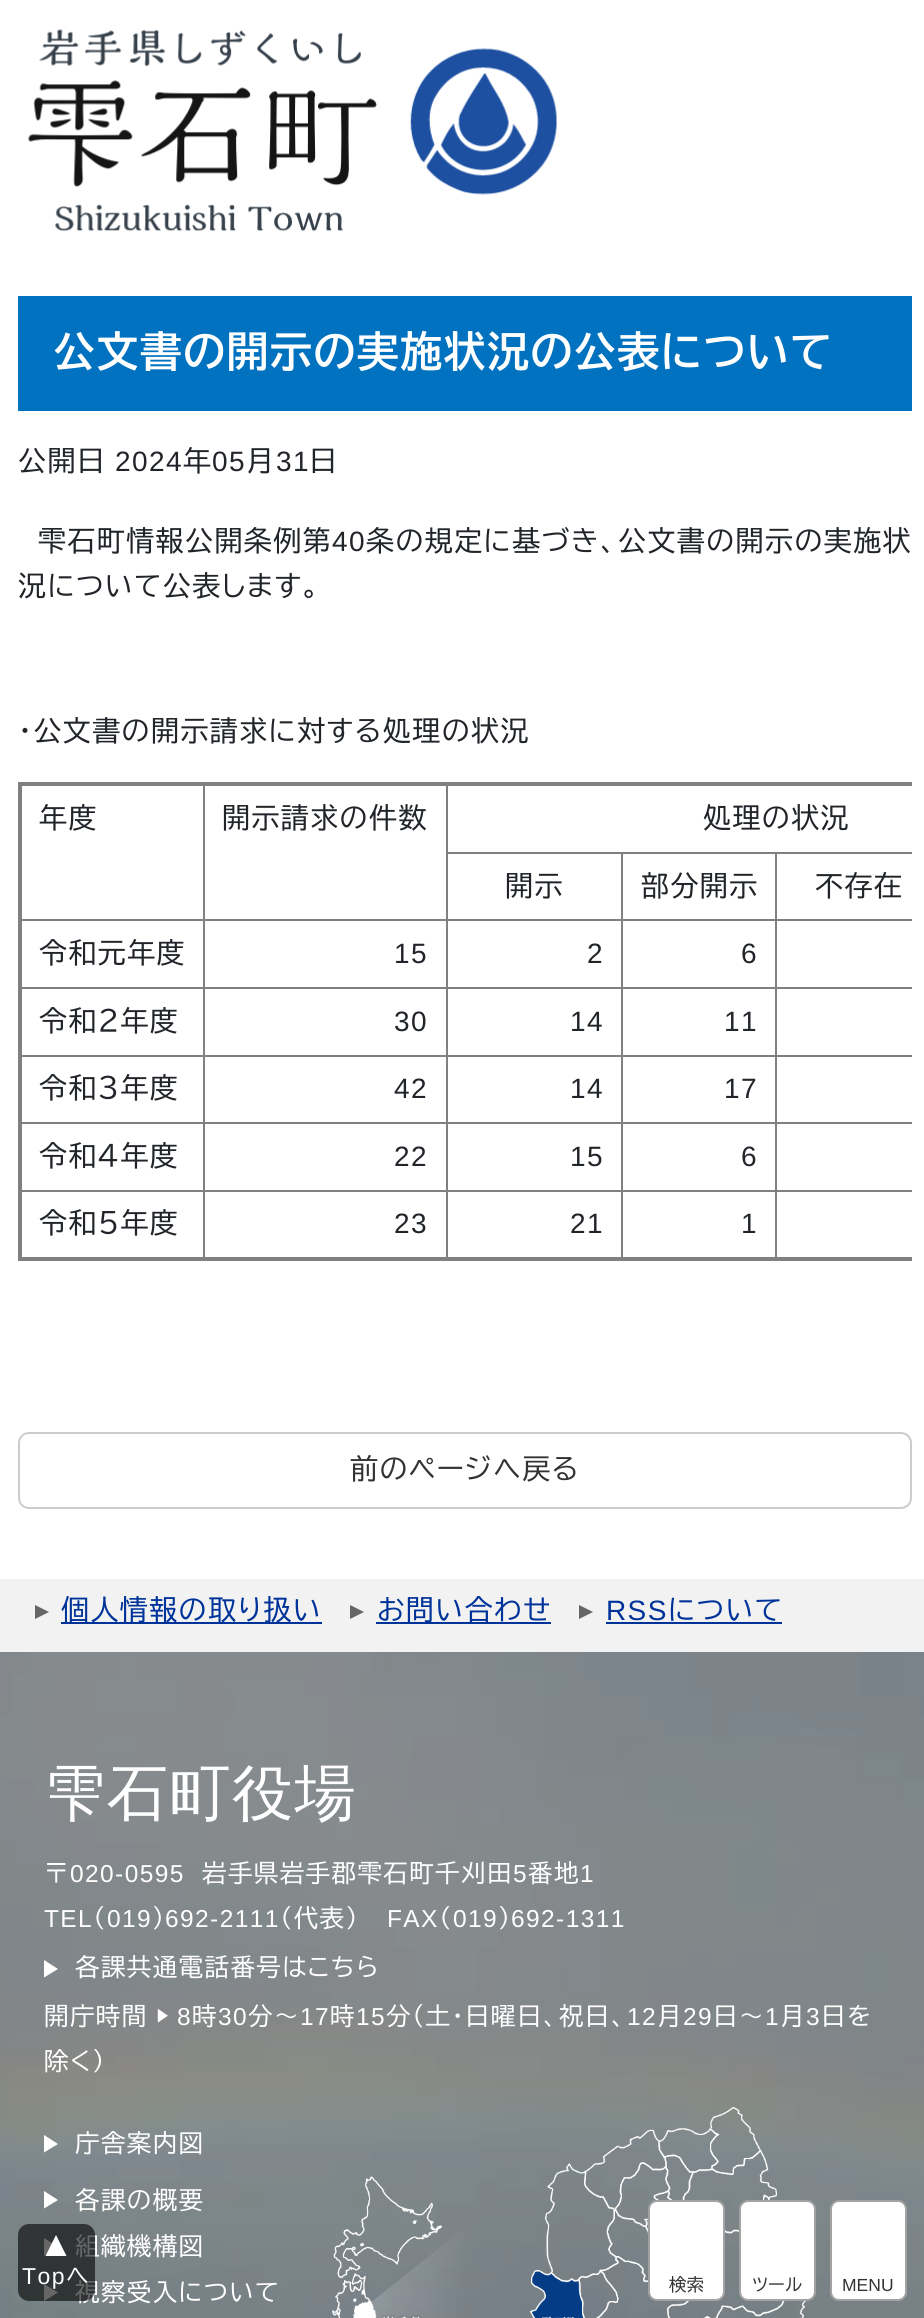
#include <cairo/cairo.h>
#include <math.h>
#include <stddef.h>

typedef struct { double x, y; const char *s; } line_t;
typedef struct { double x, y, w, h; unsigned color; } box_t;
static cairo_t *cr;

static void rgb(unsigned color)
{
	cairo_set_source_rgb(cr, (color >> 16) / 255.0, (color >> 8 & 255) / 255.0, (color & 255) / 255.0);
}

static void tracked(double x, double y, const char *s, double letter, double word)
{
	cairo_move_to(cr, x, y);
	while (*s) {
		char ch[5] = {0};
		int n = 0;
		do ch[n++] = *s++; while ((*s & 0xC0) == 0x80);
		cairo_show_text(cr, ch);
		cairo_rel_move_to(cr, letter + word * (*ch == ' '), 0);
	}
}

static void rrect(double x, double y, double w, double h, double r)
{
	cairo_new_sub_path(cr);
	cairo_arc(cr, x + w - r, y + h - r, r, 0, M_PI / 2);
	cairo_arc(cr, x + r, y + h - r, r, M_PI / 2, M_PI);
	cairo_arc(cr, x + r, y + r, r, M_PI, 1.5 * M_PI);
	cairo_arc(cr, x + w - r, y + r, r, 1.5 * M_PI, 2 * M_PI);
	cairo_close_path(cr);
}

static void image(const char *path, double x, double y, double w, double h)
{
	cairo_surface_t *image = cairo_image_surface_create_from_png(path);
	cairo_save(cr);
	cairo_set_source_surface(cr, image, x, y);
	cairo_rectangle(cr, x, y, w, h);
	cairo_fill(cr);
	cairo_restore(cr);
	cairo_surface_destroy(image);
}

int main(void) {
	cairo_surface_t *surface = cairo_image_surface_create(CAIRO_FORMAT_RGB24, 924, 2318);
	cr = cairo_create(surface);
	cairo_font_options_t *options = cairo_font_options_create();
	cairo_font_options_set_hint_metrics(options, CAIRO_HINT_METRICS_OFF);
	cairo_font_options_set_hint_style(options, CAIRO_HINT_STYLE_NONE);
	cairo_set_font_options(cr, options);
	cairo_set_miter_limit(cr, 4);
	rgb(0xffffff);
	cairo_paint(cr);
	{
		static const box_t items[] = {
			{18, 296, 894, 115, 0x0172c0},
			{775, 919, 137, 2, 0x808080},
			{775, 987, 137, 2, 0x808080},
			{775, 1055, 137, 2, 0x808080},
			{775, 1122, 137, 2, 0x808080},
			{775, 1190, 137, 2, 0x808080},
			{775, 1190, 2, 70, 0x808080},
			{621, 1190, 156, 2, 0x808080},
			{775, 1122, 2, 70, 0x808080},
			{621, 1122, 156, 2, 0x808080},
			{775, 1055, 2, 69, 0x808080},
			{621, 1055, 156, 2, 0x808080},
			{775, 987, 2, 70, 0x808080},
			{621, 987, 156, 2, 0x808080},
			{775, 919, 2, 70, 0x808080},
			{621, 919, 156, 2, 0x808080},
			{621, 1190, 2, 70, 0x808080},
			{446, 1190, 177, 2, 0x808080},
			{621, 1122, 2, 70, 0x808080},
			{446, 1122, 177, 2, 0x808080},
			{621, 1055, 2, 69, 0x808080},
			{446, 1055, 177, 2, 0x808080},
			{621, 987, 2, 70, 0x808080},
			{446, 987, 177, 2, 0x808080},
			{621, 919, 2, 70, 0x808080},
			{446, 919, 177, 2, 0x808080},
			{446, 1190, 2, 70, 0x808080},
			{203, 1190, 245, 2, 0x808080},
			{446, 1122, 2, 70, 0x808080},
			{203, 1122, 245, 2, 0x808080},
			{446, 1055, 2, 69, 0x808080},
			{203, 1055, 245, 2, 0x808080},
			{446, 987, 2, 70, 0x808080},
			{203, 987, 245, 2, 0x808080},
			{446, 919, 2, 70, 0x808080},
			{203, 919, 245, 2, 0x808080},
			{203, 1190, 2, 70, 0x808080},
			{19, 1190, 186, 2, 0x808080},
			{203, 1122, 2, 70, 0x808080},
			{19, 1122, 186, 2, 0x808080},
			{203, 1055, 2, 69, 0x808080},
			{19, 1055, 186, 2, 0x808080},
			{203, 987, 2, 70, 0x808080},
			{19, 987, 186, 2, 0x808080},
			{203, 919, 2, 70, 0x808080},
			{19, 919, 186, 2, 0x808080},
			{203, 784, 2, 137, 0x808080},
			{775, 852, 137, 2, 0x808080},
			{775, 852, 2, 69, 0x808080},
			{621, 852, 156, 2, 0x808080},
			{621, 852, 2, 69, 0x808080},
			{446, 852, 177, 2, 0x808080},
			{446, 784, 2, 137, 0x808080},
			{18, 782, 894, 4, 0x808080},
			{18, 1257, 894, 4, 0x808080},
			{18, 782, 4, 478, 0x808080},
		};
		for (size_t i = 0; i < sizeof items / sizeof *items; i++) {
			rgb(items[i].color);
			cairo_rectangle(cr, items[i].x, items[i].y, items[i].w, items[i].h);
			cairo_fill(cr);
		}
	}
	rrect(19, 1433, 892, 75, 10);
	rgb(0xcccccc);
	cairo_stroke(cr);
	rgb(0xf2f2f2);
	cairo_rectangle(cr, 0, 1579, 924, 73);
	cairo_fill(cr);
	rgb(0x666666);
	cairo_new_path(cr);
	cairo_move_to(cr, 35, 1605);
	cairo_line_to(cr, 35, 1619);
	cairo_line_to(cr, 49, 1612);
	cairo_close_path(cr);
	cairo_fill(cr);
	rgb(0x003399);
	cairo_rectangle(cr, 61, 1622, 261, 2);
	cairo_fill(cr);
	rgb(0x666666);
	cairo_new_path(cr);
	cairo_move_to(cr, 350, 1605);
	cairo_line_to(cr, 350, 1619);
	cairo_line_to(cr, 364, 1612);
	cairo_close_path(cr);
	cairo_fill(cr);
	rgb(0x003399);
	cairo_rectangle(cr, 376, 1622, 175, 2);
	cairo_fill(cr);
	rgb(0x666666);
	cairo_new_path(cr);
	cairo_move_to(cr, 579, 1605);
	cairo_line_to(cr, 579, 1619);
	cairo_line_to(cr, 593, 1612);
	cairo_close_path(cr);
	cairo_fill(cr);
	rgb(0x003399);
	cairo_rectangle(cr, 606, 1622, 176, 2);
	cairo_fill(cr);
	image("img/1.png", 0, 1652, 924, 666);
	rgb(0xffffff);
	cairo_new_path(cr);
	cairo_move_to(cr, 44, 1977.5);
	cairo_line_to(cr, 44, 1960);
	cairo_line_to(cr, 58, 1969);
	cairo_close_path(cr);
	cairo_fill(cr);
	cairo_new_path(cr);
	cairo_move_to(cr, 44, 2152.5);
	cairo_line_to(cr, 44, 2135);
	cairo_line_to(cr, 58, 2144);
	cairo_close_path(cr);
	cairo_fill(cr);
	cairo_new_path(cr);
	cairo_move_to(cr, 44, 2208.5);
	cairo_line_to(cr, 44, 2191);
	cairo_line_to(cr, 58, 2200);
	cairo_close_path(cr);
	cairo_fill(cr);
	cairo_new_path(cr);
	cairo_move_to(cr, 44, 2256);
	cairo_line_to(cr, 44, 2238);
	cairo_line_to(cr, 58, 2247);
	cairo_close_path(cr);
	cairo_fill(cr);
	cairo_new_path(cr);
	cairo_move_to(cr, 44, 2301);
	cairo_line_to(cr, 44, 2284);
	cairo_line_to(cr, 58, 2292.5);
	cairo_close_path(cr);
	cairo_fill(cr);
	image("img/2.png", 332, 2107, 476, 211);
	image("img/3.png", 28, 29, 529, 203);
	rrect(649, 2201, 75, 99, 8);
	cairo_fill_preserve(cr);
	rgb(0xa2a2a2);
	cairo_stroke(cr);
	rgb(0xffffff);
	rrect(740, 2201, 75, 99, 8);
	cairo_fill_preserve(cr);
	rgb(0xa2a2a2);
	cairo_stroke(cr);
	rgb(0xffffff);
	rrect(831, 2201, 75, 99, 8);
	cairo_fill_preserve(cr);
	rgb(0xa2a2a2);
	cairo_stroke(cr);
	cairo_select_font_face(cr, "BIZ UDPGothic", CAIRO_FONT_SLANT_NORMAL, CAIRO_FONT_WEIGHT_BOLD);
	cairo_set_font_size(cr, 42);
	rgb(0xffffff);
	tracked(53, 367, "公文書の開示の実施状況の公表について", 1.4, 0);
	cairo_select_font_face(cr, "BIZ UDPGothic", CAIRO_FONT_SLANT_NORMAL, CAIRO_FONT_WEIGHT_NORMAL);
	cairo_set_font_size(cr, 28);
	rgb(0x212529);
	tracked(18, 471, "公開日", 1.4, 0);
	cairo_select_font_face(cr, "Liberation Sans", CAIRO_FONT_SLANT_NORMAL, CAIRO_FONT_WEIGHT_NORMAL);
	tracked(115, 471, "2024", 1.4, 0);
	cairo_select_font_face(cr, "BIZ UDPGothic", CAIRO_FONT_SLANT_NORMAL, CAIRO_FONT_WEIGHT_NORMAL);
	tracked(183, 471, "年", 1.4, 0);
	cairo_select_font_face(cr, "Liberation Sans", CAIRO_FONT_SLANT_NORMAL, CAIRO_FONT_WEIGHT_NORMAL);
	tracked(212, 471, "05", 1.4, 0);
	cairo_select_font_face(cr, "BIZ UDPGothic", CAIRO_FONT_SLANT_NORMAL, CAIRO_FONT_WEIGHT_NORMAL);
	tracked(246, 471, "月", 1.4, 0);
	cairo_select_font_face(cr, "Liberation Sans", CAIRO_FONT_SLANT_NORMAL, CAIRO_FONT_WEIGHT_NORMAL);
	tracked(276, 471, "31", 1.4, 0);
	cairo_select_font_face(cr, "BIZ UDPGothic", CAIRO_FONT_SLANT_NORMAL, CAIRO_FONT_WEIGHT_NORMAL);
	tracked(309, 471, "日", 1.4, 0);
	tracked(38, 551, "雫石町情報公開条例第", 1.4, 0);
	cairo_select_font_face(cr, "Liberation Sans", CAIRO_FONT_SLANT_NORMAL, CAIRO_FONT_WEIGHT_NORMAL);
	tracked(332, 551, "40", 1.4, 0);
	cairo_select_font_face(cr, "BIZ UDPGothic", CAIRO_FONT_SLANT_NORMAL, CAIRO_FONT_WEIGHT_NORMAL);
	{
		static const line_t items[] = {
			{366, 551, "条の規定に基づき、公文書の開示の実施状"},
			{18, 596, "況について公表します。"},
			{18, 741, "・公文書の開示請求に対する処理の状況"},
			{39, 828, "年度"},
			{222, 828, "開示請求の件数"},
			{703, 828, "処理の状況"},
			{505, 896, "開示"},
			{641, 896, "部分開示"},
			{815, 896, "不存在"},
			{39, 963, "令和元年度"},
		};
		for (size_t i = 0; i < sizeof items / sizeof *items; i++) {
			tracked(items[i].x, items[i].y, items[i].s, 1.4, 0);
		}
	}
	cairo_select_font_face(cr, "Liberation Sans", CAIRO_FONT_SLANT_NORMAL, CAIRO_FONT_WEIGHT_NORMAL);
	{
		static const line_t items[] = {
			{394, 963, "15"},
			{587, 963, "2"},
			{741, 963, "6"},
		};
		for (size_t i = 0; i < sizeof items / sizeof *items; i++) {
			tracked(items[i].x, items[i].y, items[i].s, 1.4, 0);
		}
	}
	cairo_select_font_face(cr, "BIZ UDPGothic", CAIRO_FONT_SLANT_NORMAL, CAIRO_FONT_WEIGHT_NORMAL);
	tracked(39, 1031, "令和２年度", 1.4, 0);
	cairo_select_font_face(cr, "Liberation Sans", CAIRO_FONT_SLANT_NORMAL, CAIRO_FONT_WEIGHT_NORMAL);
	{
		static const line_t items[] = {
			{394, 1031, "30"},
			{570, 1031, "14"},
			{724, 1031, "11"},
		};
		for (size_t i = 0; i < sizeof items / sizeof *items; i++) {
			tracked(items[i].x, items[i].y, items[i].s, 1.4, 0);
		}
	}
	cairo_select_font_face(cr, "BIZ UDPGothic", CAIRO_FONT_SLANT_NORMAL, CAIRO_FONT_WEIGHT_NORMAL);
	tracked(39, 1098, "令和３年度", 1.4, 0);
	cairo_select_font_face(cr, "Liberation Sans", CAIRO_FONT_SLANT_NORMAL, CAIRO_FONT_WEIGHT_NORMAL);
	{
		static const line_t items[] = {
			{394, 1098, "42"},
			{570, 1098, "14"},
			{724, 1098, "17"},
		};
		for (size_t i = 0; i < sizeof items / sizeof *items; i++) {
			tracked(items[i].x, items[i].y, items[i].s, 1.4, 0);
		}
	}
	cairo_select_font_face(cr, "BIZ UDPGothic", CAIRO_FONT_SLANT_NORMAL, CAIRO_FONT_WEIGHT_NORMAL);
	tracked(39, 1166, "令和４年度", 1.4, 0);
	cairo_select_font_face(cr, "Liberation Sans", CAIRO_FONT_SLANT_NORMAL, CAIRO_FONT_WEIGHT_NORMAL);
	{
		static const line_t items[] = {
			{394, 1166, "22"},
			{570, 1166, "15"},
			{741, 1166, "6"},
		};
		for (size_t i = 0; i < sizeof items / sizeof *items; i++) {
			tracked(items[i].x, items[i].y, items[i].s, 1.4, 0);
		}
	}
	cairo_select_font_face(cr, "BIZ UDPGothic", CAIRO_FONT_SLANT_NORMAL, CAIRO_FONT_WEIGHT_NORMAL);
	tracked(39, 1233, "令和５年度", 1.4, 0);
	cairo_select_font_face(cr, "Liberation Sans", CAIRO_FONT_SLANT_NORMAL, CAIRO_FONT_WEIGHT_NORMAL);
	{
		static const line_t items[] = {
			{394, 1233, "23"},
			{570, 1233, "21"},
			{741, 1233, "1"},
		};
		for (size_t i = 0; i < sizeof items / sizeof *items; i++) {
			tracked(items[i].x, items[i].y, items[i].s, 1.4, 0);
		}
	}
	cairo_select_font_face(cr, "BIZ UDPGothic", CAIRO_FONT_SLANT_NORMAL, CAIRO_FONT_WEIGHT_NORMAL);
	rgb(0x333333);
	tracked(350, 1479, "前のページへ戻る", 1.4, 0);
	rgb(0x003399);
	tracked(61, 1620, "個人情報の取り扱い", 1.4, 0);
	tracked(377, 1620, "お問い合わせ", 1.4, 0);
	cairo_select_font_face(cr, "Liberation Sans", CAIRO_FONT_SLANT_NORMAL, CAIRO_FONT_WEIGHT_NORMAL);
	tracked(606, 1620, "RSS", 1.4, 0);
	cairo_select_font_face(cr, "BIZ UDPGothic", CAIRO_FONT_SLANT_NORMAL, CAIRO_FONT_WEIGHT_NORMAL);
	tracked(668, 1620, "について", 1.4, 0);
	cairo_select_font_face(cr, "WenQuanYi Zen Hei Medium", CAIRO_FONT_SLANT_NORMAL, CAIRO_FONT_WEIGHT_NORMAL);
	cairo_set_font_size(cr, 61.25);
	rgb(0xffffff);
	tracked(44, 1814, "雫石町役場", 1.4, 0);
	cairo_select_font_face(cr, "BIZ UDPGothic", CAIRO_FONT_SLANT_NORMAL, CAIRO_FONT_WEIGHT_NORMAL);
	cairo_set_font_size(cr, 24.5);
	tracked(44, 1882, "〒", 1.4, 0);
	cairo_select_font_face(cr, "Liberation Sans", CAIRO_FONT_SLANT_NORMAL, CAIRO_FONT_WEIGHT_NORMAL);
	tracked(70, 1882, "020-0595", 1.4, 0);
	cairo_select_font_face(cr, "BIZ UDPGothic", CAIRO_FONT_SLANT_NORMAL, CAIRO_FONT_WEIGHT_NORMAL);
	tracked(202, 1882, "岩手県岩手郡雫石町千刈田", 1.4, 0);
	cairo_select_font_face(cr, "Liberation Sans", CAIRO_FONT_SLANT_NORMAL, CAIRO_FONT_WEIGHT_NORMAL);
	tracked(513, 1882, "5", 1.4, 0);
	cairo_select_font_face(cr, "BIZ UDPGothic", CAIRO_FONT_SLANT_NORMAL, CAIRO_FONT_WEIGHT_NORMAL);
	tracked(528, 1882, "番地", 1.4, 0);
	cairo_select_font_face(cr, "Liberation Sans", CAIRO_FONT_SLANT_NORMAL, CAIRO_FONT_WEIGHT_NORMAL);
	tracked(580, 1882, "1", 1.4, 0);
	tracked(44, 1927, "TEL", 1.4, 0);
	cairo_select_font_face(cr, "BIZ UDPGothic", CAIRO_FONT_SLANT_NORMAL, CAIRO_FONT_WEIGHT_NORMAL);
	tracked(93, 1927, "（", 1.4, 0);
	cairo_select_font_face(cr, "Liberation Sans", CAIRO_FONT_SLANT_NORMAL, CAIRO_FONT_WEIGHT_NORMAL);
	tracked(107, 1927, "019", 1.4, 0);
	cairo_select_font_face(cr, "BIZ UDPGothic", CAIRO_FONT_SLANT_NORMAL, CAIRO_FONT_WEIGHT_NORMAL);
	tracked(152, 1927, "）", 1.4, 0);
	cairo_select_font_face(cr, "Liberation Sans", CAIRO_FONT_SLANT_NORMAL, CAIRO_FONT_WEIGHT_NORMAL);
	tracked(165, 1927, "692-2111", 1.4, 0);
	cairo_select_font_face(cr, "BIZ UDPGothic", CAIRO_FONT_SLANT_NORMAL, CAIRO_FONT_WEIGHT_NORMAL);
	tracked(280, 1927, "（代表）", 1.4, 0);
	cairo_select_font_face(cr, "Liberation Sans", CAIRO_FONT_SLANT_NORMAL, CAIRO_FONT_WEIGHT_NORMAL);
	tracked(387, 1927, "FAX", 1.4, 0);
	cairo_select_font_face(cr, "BIZ UDPGothic", CAIRO_FONT_SLANT_NORMAL, CAIRO_FONT_WEIGHT_NORMAL);
	tracked(439, 1927, "（", 1.4, 0);
	cairo_select_font_face(cr, "Liberation Sans", CAIRO_FONT_SLANT_NORMAL, CAIRO_FONT_WEIGHT_NORMAL);
	tracked(453, 1927, "019", 1.4, 0);
	cairo_select_font_face(cr, "BIZ UDPGothic", CAIRO_FONT_SLANT_NORMAL, CAIRO_FONT_WEIGHT_NORMAL);
	tracked(498, 1927, "）", 1.4, 0);
	cairo_select_font_face(cr, "Liberation Sans", CAIRO_FONT_SLANT_NORMAL, CAIRO_FONT_WEIGHT_NORMAL);
	tracked(511, 1927, "692-1311", 1.4, 0);
	cairo_select_font_face(cr, "BIZ UDPGothic", CAIRO_FONT_SLANT_NORMAL, CAIRO_FONT_WEIGHT_NORMAL);
	tracked(75, 1976, "各課共通電話番号はこちら", 1.4, 0);
	tracked(44, 2025, "開庁時間 ▶", 1.4, -1);
	cairo_select_font_face(cr, "Liberation Sans", CAIRO_FONT_SLANT_NORMAL, CAIRO_FONT_WEIGHT_NORMAL);
	tracked(177, 2025, "8", 1.4, 0);
	cairo_select_font_face(cr, "BIZ UDPGothic", CAIRO_FONT_SLANT_NORMAL, CAIRO_FONT_WEIGHT_NORMAL);
	tracked(192, 2025, "時", 1.4, 0);
	cairo_select_font_face(cr, "Liberation Sans", CAIRO_FONT_SLANT_NORMAL, CAIRO_FONT_WEIGHT_NORMAL);
	tracked(218, 2025, "30", 1.4, 0);
	cairo_select_font_face(cr, "BIZ UDPGothic", CAIRO_FONT_SLANT_NORMAL, CAIRO_FONT_WEIGHT_NORMAL);
	tracked(248, 2025, "分～", 1.4, 0);
	cairo_select_font_face(cr, "Liberation Sans", CAIRO_FONT_SLANT_NORMAL, CAIRO_FONT_WEIGHT_NORMAL);
	tracked(300, 2025, "17", 1.4, 0);
	cairo_select_font_face(cr, "BIZ UDPGothic", CAIRO_FONT_SLANT_NORMAL, CAIRO_FONT_WEIGHT_NORMAL);
	tracked(330, 2025, "時", 1.4, 0);
	cairo_select_font_face(cr, "Liberation Sans", CAIRO_FONT_SLANT_NORMAL, CAIRO_FONT_WEIGHT_NORMAL);
	tracked(356, 2025, "15", 1.4, 0);
	cairo_select_font_face(cr, "BIZ UDPGothic", CAIRO_FONT_SLANT_NORMAL, CAIRO_FONT_WEIGHT_NORMAL);
	tracked(386, 2025, "分（土・日曜日、祝日、", 1.4, 0);
	cairo_select_font_face(cr, "Liberation Sans", CAIRO_FONT_SLANT_NORMAL, CAIRO_FONT_WEIGHT_NORMAL);
	tracked(627, 2025, "12", 1.4, 0);
	cairo_select_font_face(cr, "BIZ UDPGothic", CAIRO_FONT_SLANT_NORMAL, CAIRO_FONT_WEIGHT_NORMAL);
	tracked(657, 2025, "月", 1.4, 0);
	cairo_select_font_face(cr, "Liberation Sans", CAIRO_FONT_SLANT_NORMAL, CAIRO_FONT_WEIGHT_NORMAL);
	tracked(683, 2025, "29", 1.4, 0);
	cairo_select_font_face(cr, "BIZ UDPGothic", CAIRO_FONT_SLANT_NORMAL, CAIRO_FONT_WEIGHT_NORMAL);
	tracked(713, 2025, "日～", 1.4, 0);
	cairo_select_font_face(cr, "Liberation Sans", CAIRO_FONT_SLANT_NORMAL, CAIRO_FONT_WEIGHT_NORMAL);
	tracked(765, 2025, "1", 1.4, 0);
	cairo_select_font_face(cr, "BIZ UDPGothic", CAIRO_FONT_SLANT_NORMAL, CAIRO_FONT_WEIGHT_NORMAL);
	tracked(780, 2025, "月", 1.4, 0);
	cairo_select_font_face(cr, "Liberation Sans", CAIRO_FONT_SLANT_NORMAL, CAIRO_FONT_WEIGHT_NORMAL);
	tracked(806, 2025, "3", 1.4, 0);
	cairo_select_font_face(cr, "BIZ UDPGothic", CAIRO_FONT_SLANT_NORMAL, CAIRO_FONT_WEIGHT_NORMAL);
	{
		static const line_t items[] = {
			{821, 2025, "日を"},
			{44, 2070, "除く）"},
			{75, 2152, "庁舎案内図"},
			{75, 2209, "各課の概要"},
			{75, 2255, "組織機構図"},
			{75, 2301, "視察受入について"},
		};
		for (size_t i = 0; i < sizeof items / sizeof *items; i++) {
			tracked(items[i].x, items[i].y, items[i].s, 1.4, 0);
		}
	}
	cairo_set_font_size(cr, 17.5);
	rgb(0x333333);
	cairo_move_to(cr, 669, 2291);
	cairo_show_text(cr, "検索");
	cairo_move_to(cr, 752, 2291);
	cairo_show_text(cr, "ツール");
	cairo_select_font_face(cr, "Liberation Sans", CAIRO_FONT_SLANT_NORMAL, CAIRO_FONT_WEIGHT_NORMAL);
	cairo_move_to(cr, 842, 2291);
	cairo_show_text(cr, "MENU");
	cairo_set_source_rgba(cr, 0, 0, 0, 0.6);
	rrect(18, 2224, 77, 77, 11);
	cairo_fill(cr);
	rgb(0xffffff);
	cairo_new_path(cr);
	cairo_move_to(cr, 66.5, 2256);
	cairo_line_to(cr, 45.5, 2256);
	cairo_line_to(cr, 56, 2235);
	cairo_close_path(cr);
	cairo_fill(cr);
	cairo_set_font_size(cr, 23);
	tracked(22, 2284, "Top", 1.4, 0);
	cairo_select_font_face(cr, "BIZ UDPGothic", CAIRO_FONT_SLANT_NORMAL, CAIRO_FONT_WEIGHT_NORMAL);
	tracked(66, 2284, "へ", 1.4, 0);
	cairo_surface_write_to_png(surface, "page.png");
	cairo_font_options_destroy(options);
	cairo_destroy(cr);
	cairo_surface_destroy(surface);
	return 0;
}
